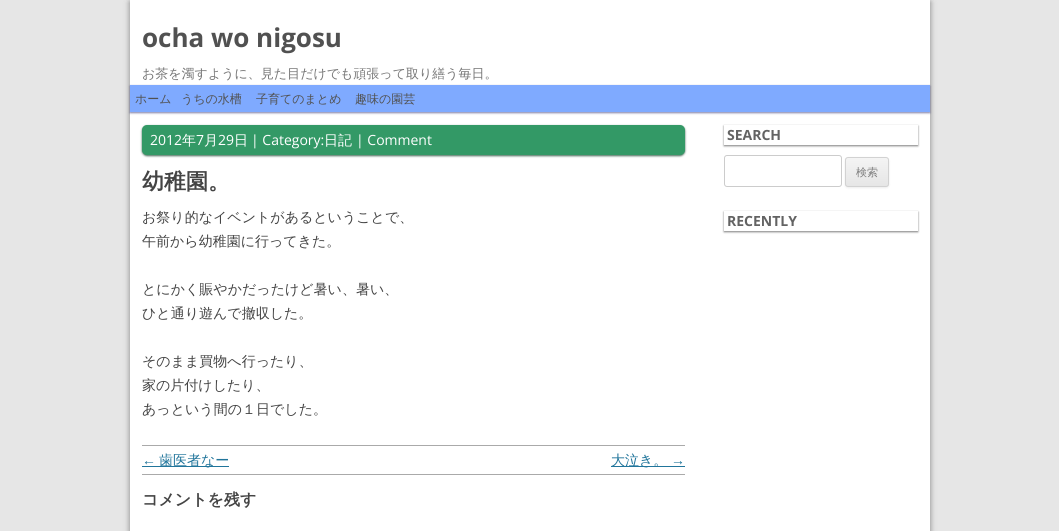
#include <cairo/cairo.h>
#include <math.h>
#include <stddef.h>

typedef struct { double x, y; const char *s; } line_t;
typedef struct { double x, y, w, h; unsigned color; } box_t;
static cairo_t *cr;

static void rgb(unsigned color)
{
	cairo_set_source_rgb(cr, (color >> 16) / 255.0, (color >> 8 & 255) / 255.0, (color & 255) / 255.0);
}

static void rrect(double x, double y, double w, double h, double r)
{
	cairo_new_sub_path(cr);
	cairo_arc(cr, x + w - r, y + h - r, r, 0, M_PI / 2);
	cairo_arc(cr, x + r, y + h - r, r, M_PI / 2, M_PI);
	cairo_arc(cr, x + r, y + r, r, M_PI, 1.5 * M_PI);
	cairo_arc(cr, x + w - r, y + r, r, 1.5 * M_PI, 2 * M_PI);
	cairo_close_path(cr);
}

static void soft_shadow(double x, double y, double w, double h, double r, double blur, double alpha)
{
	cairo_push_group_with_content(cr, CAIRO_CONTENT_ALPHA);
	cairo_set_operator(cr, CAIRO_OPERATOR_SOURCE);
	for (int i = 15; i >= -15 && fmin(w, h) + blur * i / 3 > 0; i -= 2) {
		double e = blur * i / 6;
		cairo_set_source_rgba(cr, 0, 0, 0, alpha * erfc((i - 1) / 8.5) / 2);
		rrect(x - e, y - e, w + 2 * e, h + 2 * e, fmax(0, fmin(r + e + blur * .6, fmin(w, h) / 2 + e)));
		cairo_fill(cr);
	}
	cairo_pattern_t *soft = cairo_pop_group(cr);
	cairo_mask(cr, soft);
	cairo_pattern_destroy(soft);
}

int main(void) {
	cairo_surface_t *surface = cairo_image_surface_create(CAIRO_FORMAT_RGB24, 1059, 531);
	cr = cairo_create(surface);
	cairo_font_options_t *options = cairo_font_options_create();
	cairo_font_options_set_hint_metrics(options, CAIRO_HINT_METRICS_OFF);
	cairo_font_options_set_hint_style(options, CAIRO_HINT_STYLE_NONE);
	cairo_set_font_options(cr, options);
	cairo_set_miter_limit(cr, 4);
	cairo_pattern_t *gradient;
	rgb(0xe6e6e6);
	cairo_paint(cr);
	rgb(0x646464);
	soft_shadow(130, 2, 800, 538, 0, 3, 0.8);
	rgb(0xffffff);
	cairo_rectangle(cr, 130, 0, 800, 531);
	cairo_fill(cr);
	rgb(0x000050);
	soft_shadow(130, 86, 800, 27, 0, 1, 0.5);
	rgb(0x7faaff);
	cairo_rectangle(cr, 130, 85, 800, 27);
	cairo_fill(cr);
	rgb(0x16422c);
	soft_shadow(142, 126, 543, 30, 5, 1, 0.8);
	rgb(0x339966);
	rrect(142, 125, 543, 30, 5);
	cairo_fill(cr);
	{
		static const box_t items[] = {
			{142, 445, 543, 1, 0xaaaaaa},
			{142, 466, 87, 1, 0x21759b},
			{611, 466, 74, 1, 0x21759b},
			{142, 474, 543, 1, 0xaaaaaa},
		};
		for (size_t i = 0; i < sizeof items / sizeof *items; i++) {
			rgb(items[i].color);
			cairo_rectangle(cr, items[i].x, items[i].y, items[i].w, items[i].h);
			cairo_fill(cr);
		}
	}
	cairo_save(cr);
	cairo_set_fill_rule(cr, CAIRO_FILL_RULE_EVEN_ODD);
	cairo_new_path(cr);
	cairo_move_to(cr, 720, 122);
	cairo_line_to(cr, 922, 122);
	cairo_line_to(cr, 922, 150);
	cairo_line_to(cr, 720, 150);
	cairo_close_path(cr);
	cairo_move_to(cr, 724, 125);
	cairo_line_to(cr, 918, 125);
	cairo_line_to(cr, 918, 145);
	cairo_line_to(cr, 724, 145);
	cairo_close_path(cr);
	cairo_clip(cr);
	rgb(0x000000);
	soft_shadow(724, 126, 194, 20, 0, 1, 0.5);
	cairo_restore(cr);
	rrect(724.5, 155.5, 117, 31, 2.5);
	rgb(0xcccccc);
	cairo_set_line_width(cr, 1);
	cairo_stroke(cr);
	rgb(0x404040);
	soft_shadow(845, 158, 44, 30, 3, 1, 0.1);
	cairo_save(cr);
	rrect(845, 157, 44, 30, 3);
	cairo_clip(cr);
	gradient = cairo_pattern_create_linear(867, 158, 867, 186);
	cairo_pattern_add_color_stop_rgba(gradient, 0, 0.957, 0.957, 0.957, 1);
	cairo_pattern_add_color_stop_rgba(gradient, 1, 0.902, 0.902, 0.902, 1);
	cairo_set_source(cr, gradient);
	cairo_pattern_destroy(gradient);
	cairo_rectangle(cr, 845, 158, 44, 28);
	cairo_fill(cr);
	cairo_restore(cr);
	rrect(845.5, 157.5, 43, 29, 2.5);
	rgb(0xd2d2d2);
	cairo_stroke(cr);
	cairo_save(cr);
	cairo_set_fill_rule(cr, CAIRO_FILL_RULE_EVEN_ODD);
	cairo_new_path(cr);
	cairo_move_to(cr, 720, 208);
	cairo_line_to(cr, 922, 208);
	cairo_line_to(cr, 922, 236);
	cairo_line_to(cr, 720, 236);
	cairo_close_path(cr);
	cairo_move_to(cr, 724, 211);
	cairo_line_to(cr, 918, 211);
	cairo_line_to(cr, 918, 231);
	cairo_line_to(cr, 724, 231);
	cairo_close_path(cr);
	cairo_clip(cr);
	rgb(0x000000);
	soft_shadow(724, 212, 194, 20, 0, 1, 0.5);
	cairo_restore(cr);
	cairo_select_font_face(cr, "Open Sans", CAIRO_FONT_SLANT_NORMAL, CAIRO_FONT_WEIGHT_BOLD);
	cairo_set_font_size(cr, 26);
	rgb(0x515151);
	cairo_move_to(cr, 142, 47);
	cairo_show_text(cr, "ocha wo nigosu");
	cairo_select_font_face(cr, "WenQuanYi Zen Hei Medium", CAIRO_FONT_SLANT_NORMAL, CAIRO_FONT_WEIGHT_NORMAL);
	cairo_set_font_size(cr, 13);
	rgb(0x757575);
	cairo_move_to(cr, 142, 78);
	cairo_show_text(cr, "お茶を濁すように、見た目だけでも頑張って取り繕う毎日。");
	cairo_set_font_size(cr, 12);
	rgb(0x515151);
	{
		static const line_t items[] = {
			{135, 103, "ホーム"},
			{181, 103, "うちの水槽"},
			{256, 103, "子育てのまとめ"},
			{355, 103, "趣味の園芸"},
		};
		for (size_t i = 0; i < sizeof items / sizeof *items; i++) {
			cairo_move_to(cr, items[i].x, items[i].y);
			cairo_show_text(cr, items[i].s);
		}
	}
	cairo_select_font_face(cr, "Open Sans", CAIRO_FONT_SLANT_NORMAL, CAIRO_FONT_WEIGHT_NORMAL);
	cairo_set_font_size(cr, 14);
	rgb(0xffffff);
	cairo_move_to(cr, 150, 145);
	cairo_show_text(cr, "2012");
	cairo_select_font_face(cr, "WenQuanYi Zen Hei Medium", CAIRO_FONT_SLANT_NORMAL, CAIRO_FONT_WEIGHT_NORMAL);
	cairo_move_to(cr, 182, 145);
	cairo_show_text(cr, "年");
	cairo_select_font_face(cr, "Open Sans", CAIRO_FONT_SLANT_NORMAL, CAIRO_FONT_WEIGHT_NORMAL);
	cairo_move_to(cr, 196, 145);
	cairo_show_text(cr, "7");
	cairo_select_font_face(cr, "WenQuanYi Zen Hei Medium", CAIRO_FONT_SLANT_NORMAL, CAIRO_FONT_WEIGHT_NORMAL);
	cairo_move_to(cr, 204, 145);
	cairo_show_text(cr, "月");
	cairo_select_font_face(cr, "Open Sans", CAIRO_FONT_SLANT_NORMAL, CAIRO_FONT_WEIGHT_NORMAL);
	cairo_move_to(cr, 218, 145);
	cairo_show_text(cr, "29");
	cairo_select_font_face(cr, "WenQuanYi Zen Hei Medium", CAIRO_FONT_SLANT_NORMAL, CAIRO_FONT_WEIGHT_NORMAL);
	cairo_move_to(cr, 234, 145);
	cairo_show_text(cr, "日");
	cairo_select_font_face(cr, "Open Sans", CAIRO_FONT_SLANT_NORMAL, CAIRO_FONT_WEIGHT_NORMAL);
	cairo_move_to(cr, 251, 145);
	cairo_show_text(cr, "| Category:");
	cairo_select_font_face(cr, "WenQuanYi Zen Hei Medium", CAIRO_FONT_SLANT_NORMAL, CAIRO_FONT_WEIGHT_NORMAL);
	cairo_move_to(cr, 324, 145);
	cairo_show_text(cr, "日記");
	cairo_select_font_face(cr, "Open Sans", CAIRO_FONT_SLANT_NORMAL, CAIRO_FONT_WEIGHT_NORMAL);
	cairo_move_to(cr, 356, 145);
	cairo_show_text(cr, "| Comment");
	cairo_select_font_face(cr, "WenQuanYi Zen Hei", CAIRO_FONT_SLANT_NORMAL, CAIRO_FONT_WEIGHT_BOLD);
	cairo_set_font_size(cr, 22);
	rgb(0x444444);
	cairo_move_to(cr, 142, 189);
	cairo_show_text(cr, "幼稚園。");
	cairo_select_font_face(cr, "WenQuanYi Zen Hei Medium", CAIRO_FONT_SLANT_NORMAL, CAIRO_FONT_WEIGHT_NORMAL);
	cairo_set_font_size(cr, 14);
	{
		static const line_t items[] = {
			{142, 222, "お祭り的なイベントがあるということで、"},
			{142, 246, "午前から幼稚園に行ってきた。"},
			{142, 294, "とにかく賑やかだったけど暑い、暑い、"},
			{142, 318, "ひと通り遊んで撤収した。"},
			{142, 366, "そのまま買物へ行ったり、"},
			{142, 390, "家の片付けしたり、"},
			{142, 414, "あっという間の１日でした。"},
		};
		for (size_t i = 0; i < sizeof items / sizeof *items; i++) {
			cairo_move_to(cr, items[i].x, items[i].y);
			cairo_show_text(cr, items[i].s);
		}
	}
	cairo_select_font_face(cr, "Liberation Sans", CAIRO_FONT_SLANT_NORMAL, CAIRO_FONT_WEIGHT_NORMAL);
	rgb(0x21759b);
	cairo_move_to(cr, 142, 465);
	cairo_show_text(cr, "←");
	cairo_select_font_face(cr, "WenQuanYi Zen Hei Medium", CAIRO_FONT_SLANT_NORMAL, CAIRO_FONT_WEIGHT_NORMAL);
	cairo_move_to(cr, 159, 465);
	cairo_show_text(cr, "歯医者なー");
	cairo_move_to(cr, 611, 465);
	cairo_show_text(cr, "大泣き。");
	cairo_select_font_face(cr, "Liberation Sans", CAIRO_FONT_SLANT_NORMAL, CAIRO_FONT_WEIGHT_NORMAL);
	cairo_move_to(cr, 671, 465);
	cairo_show_text(cr, "→");
	cairo_select_font_face(cr, "WenQuanYi Zen Hei", CAIRO_FONT_SLANT_NORMAL, CAIRO_FONT_WEIGHT_BOLD);
	cairo_set_font_size(cr, 16);
	rgb(0x444444);
	cairo_move_to(cr, 142, 505);
	cairo_show_text(cr, "コメントを残す");
	cairo_select_font_face(cr, "Open Sans", CAIRO_FONT_SLANT_NORMAL, CAIRO_FONT_WEIGHT_BOLD);
	cairo_set_font_size(cr, 14);
	rgb(0x636363);
	cairo_move_to(cr, 727, 140);
	cairo_show_text(cr, "SEARCH");
	cairo_select_font_face(cr, "WenQuanYi Zen Hei Medium", CAIRO_FONT_SLANT_NORMAL, CAIRO_FONT_WEIGHT_NORMAL);
	cairo_set_font_size(cr, 11);
	rgb(0x7c7c7c);
	cairo_move_to(cr, 856, 176);
	cairo_show_text(cr, "検索");
	cairo_select_font_face(cr, "Open Sans", CAIRO_FONT_SLANT_NORMAL, CAIRO_FONT_WEIGHT_BOLD);
	cairo_set_font_size(cr, 14);
	rgb(0x636363);
	cairo_move_to(cr, 727, 226);
	cairo_show_text(cr, "RECENTLY");
	cairo_surface_write_to_png(surface, "page.png");
	cairo_font_options_destroy(options);
	cairo_destroy(cr);
	cairo_surface_destroy(surface);
	return 0;
}
